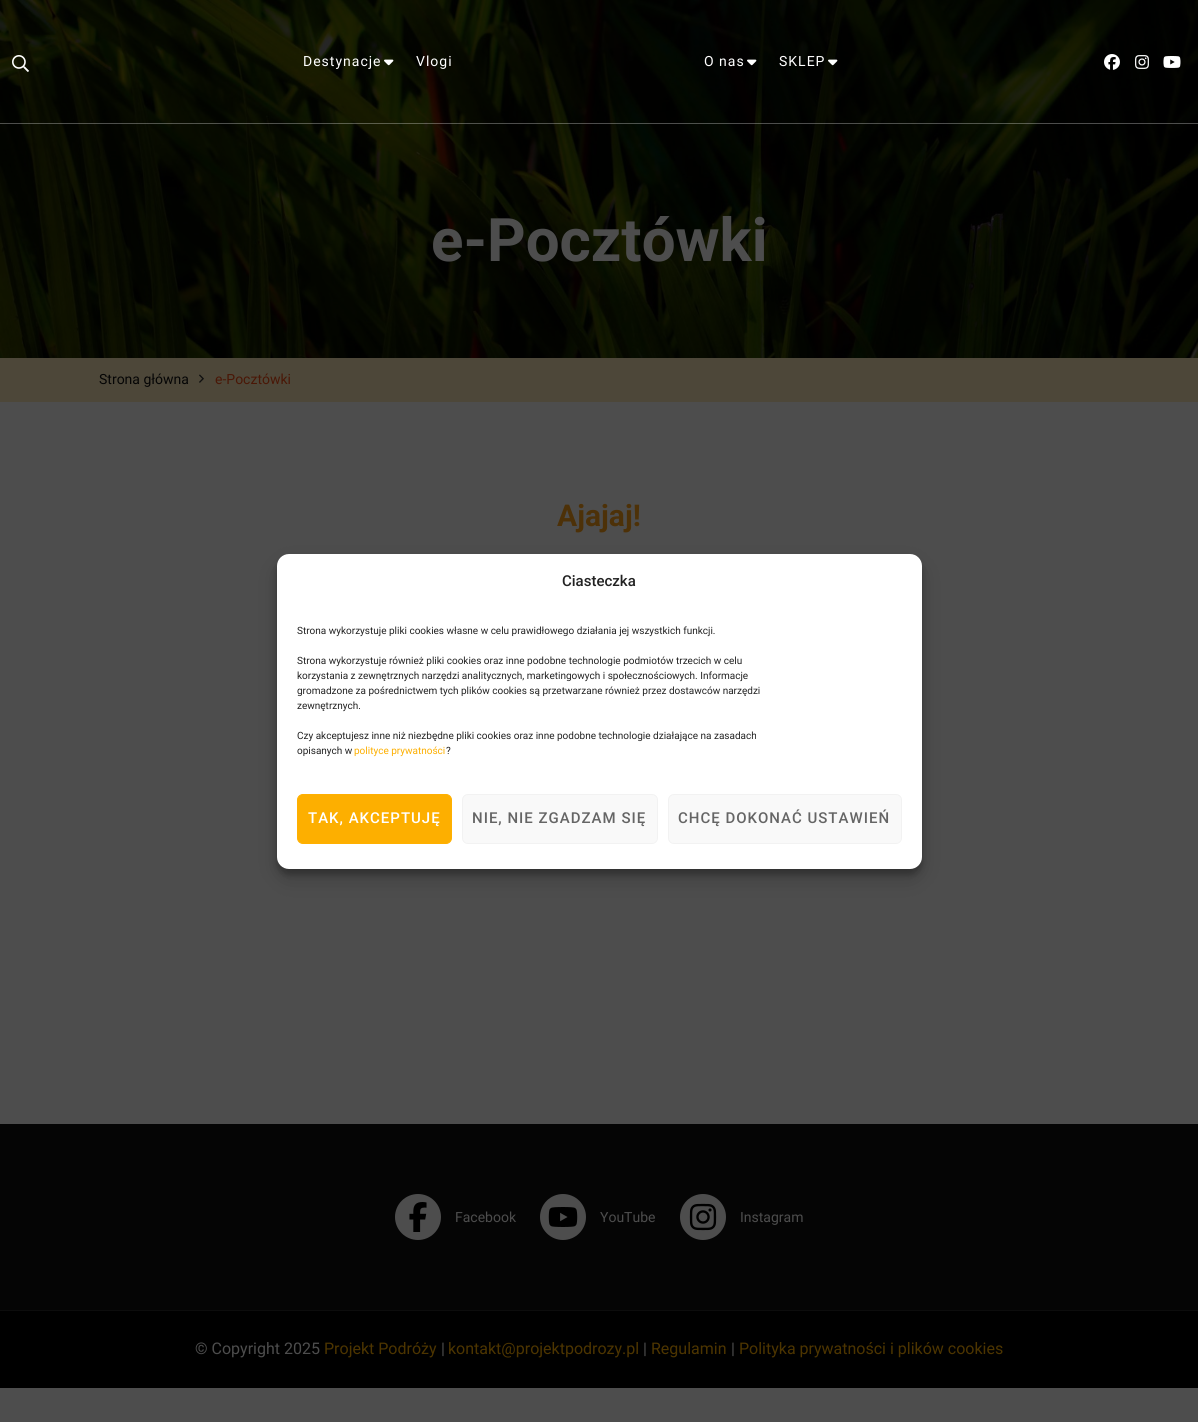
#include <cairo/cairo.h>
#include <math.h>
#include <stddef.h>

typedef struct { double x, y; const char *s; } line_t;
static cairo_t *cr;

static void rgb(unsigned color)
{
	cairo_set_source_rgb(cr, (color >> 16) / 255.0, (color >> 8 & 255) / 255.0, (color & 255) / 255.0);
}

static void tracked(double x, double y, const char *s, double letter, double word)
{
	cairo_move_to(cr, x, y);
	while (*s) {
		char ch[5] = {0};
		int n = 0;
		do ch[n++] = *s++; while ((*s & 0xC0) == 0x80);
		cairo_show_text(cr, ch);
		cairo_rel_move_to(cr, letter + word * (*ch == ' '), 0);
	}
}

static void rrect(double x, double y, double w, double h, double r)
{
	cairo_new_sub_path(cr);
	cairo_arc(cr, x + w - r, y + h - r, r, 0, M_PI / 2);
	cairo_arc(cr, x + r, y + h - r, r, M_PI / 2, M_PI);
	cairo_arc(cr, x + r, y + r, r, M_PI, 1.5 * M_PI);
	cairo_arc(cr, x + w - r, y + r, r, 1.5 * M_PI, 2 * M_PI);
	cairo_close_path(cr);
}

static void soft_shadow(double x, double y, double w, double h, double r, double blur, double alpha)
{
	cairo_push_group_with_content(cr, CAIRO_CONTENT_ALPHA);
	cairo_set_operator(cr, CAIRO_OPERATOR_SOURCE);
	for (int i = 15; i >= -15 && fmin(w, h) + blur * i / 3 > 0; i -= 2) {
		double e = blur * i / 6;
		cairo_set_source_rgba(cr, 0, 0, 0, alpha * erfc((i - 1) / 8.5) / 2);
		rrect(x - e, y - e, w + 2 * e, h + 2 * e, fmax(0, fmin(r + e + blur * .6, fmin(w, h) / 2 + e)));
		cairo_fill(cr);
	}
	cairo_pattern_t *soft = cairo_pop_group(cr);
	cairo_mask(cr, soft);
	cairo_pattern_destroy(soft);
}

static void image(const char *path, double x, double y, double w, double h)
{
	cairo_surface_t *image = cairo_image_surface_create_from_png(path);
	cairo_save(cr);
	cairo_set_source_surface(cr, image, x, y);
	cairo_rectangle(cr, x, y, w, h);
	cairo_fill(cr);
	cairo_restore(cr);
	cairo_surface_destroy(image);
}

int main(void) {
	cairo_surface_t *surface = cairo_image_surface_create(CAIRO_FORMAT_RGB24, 1198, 1422);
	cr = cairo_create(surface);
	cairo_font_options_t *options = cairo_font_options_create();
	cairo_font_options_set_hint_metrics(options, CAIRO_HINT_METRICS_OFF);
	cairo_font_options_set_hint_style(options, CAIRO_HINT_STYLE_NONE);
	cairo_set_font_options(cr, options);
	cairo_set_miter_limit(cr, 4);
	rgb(0x4d4d4d);
	cairo_paint(cr);
	image("img/8.png", 0, 0, 1198, 358);
	cairo_set_source_rgba(cr, 1, 1, 1, 0.3);
	cairo_rectangle(cr, 0, 123, 1198, 1);
	cairo_fill(cr);
	image("img/1.png", 12, 55, 17, 17);
	image("img/2.png", 384, 59, 10, 7);
	image("img/3.png", 747, 59, 10, 7);
	image("img/4.png", 828, 59, 10, 7);
	image("img/5.png", 1104, 54, 16, 16);
	image("img/6.png", 1135, 55, 14, 14);
	image("img/7.png", 1163, 56, 18, 12);
	rgb(0x4d4739);
	cairo_rectangle(cr, 0, 358, 1198, 44);
	cairo_fill(cr);
	image("img/9.png", 199, 374, 5, 9);
	rgb(0x050505);
	cairo_rectangle(cr, 0, 1124, 1198, 186);
	cairo_fill(cr);
	rgb(0x0c0c0c);
	cairo_rectangle(cr, 0, 1310, 1198, 1);
	cairo_fill(cr);
	rgb(0x4d4d4d);
	cairo_arc(cr, 418, 1217, 23, 0, 2 * M_PI);
	cairo_fill(cr);
	image("img/10.png", 409, 1202, 18, 30);
	cairo_arc(cr, 563, 1217, 23, 0, 2 * M_PI);
	cairo_fill(cr);
	image("img/11.png", 548, 1207, 30, 20);
	cairo_arc(cr, 703, 1217, 23, 0, 2 * M_PI);
	cairo_fill(cr);
	image("img/12.png", 689, 1203, 28, 28);
	rgb(0x000000);
	cairo_rectangle(cr, 0, 1311, 1198, 77);
	cairo_fill(cr);
	rgb(0x000000);
	soft_shadow(277, 560, 645, 315, 12, 3, 0.23);
	soft_shadow(277, 564, 645, 315, 12, 10, 0.19);
	rgb(0xffffff);
	rrect(277, 554, 645, 315, 12);
	cairo_fill(cr);
	rgb(0xfdaf00);
	rrect(297.5, 794.5, 154, 49, 5.5);
	cairo_fill_preserve(cr);
	rgb(0xffb000);
	cairo_set_line_width(cr, 1);
	cairo_stroke(cr);
	rgb(0xf9f9f9);
	rrect(462.5, 794.5, 195, 49, 5.5);
	cairo_fill_preserve(cr);
	rgb(0xf2f2f2);
	cairo_stroke(cr);
	rgb(0xf9f9f9);
	rrect(668.5, 794.5, 233, 49, 5.5);
	cairo_fill_preserve(cr);
	rgb(0xf2f2f2);
	cairo_stroke(cr);
	cairo_select_font_face(cr, "Roboto", CAIRO_FONT_SLANT_NORMAL, CAIRO_FONT_WEIGHT_NORMAL);
	cairo_set_font_size(cr, 14);
	rgb(0xffffff);
	{
		static const line_t items[] = {
			{303, 66, "Destynacje"},
			{416, 66, "Vlogi"},
			{704, 66, "O nas"},
			{779, 66, "SKLEP"},
		};
		for (size_t i = 0; i < sizeof items / sizeof *items; i++) {
			tracked(items[i].x, items[i].y, items[i].s, 1, 0);
		}
	}
	cairo_select_font_face(cr, "Roboto", CAIRO_FONT_SLANT_NORMAL, CAIRO_FONT_WEIGHT_BOLD);
	cairo_set_font_size(cr, 60);
	rgb(0x4d4d4d);
	cairo_move_to(cr, 431, 261);
	cairo_show_text(cr, "e-Pocztówki");
	cairo_select_font_face(cr, "Roboto", CAIRO_FONT_SLANT_NORMAL, CAIRO_FONT_WEIGHT_NORMAL);
	cairo_set_font_size(cr, 14);
	rgb(0x050505);
	cairo_move_to(cr, 99, 384);
	cairo_show_text(cr, "Strona główna");
	rgb(0x4a1706);
	cairo_move_to(cr, 215, 384);
	cairo_show_text(cr, "e-Pocztówki");
	cairo_select_font_face(cr, "Roboto", CAIRO_FONT_SLANT_NORMAL, CAIRO_FONT_WEIGHT_BOLD);
	cairo_set_font_size(cr, 30);
	rgb(0x4d3108);
	cairo_move_to(cr, 557, 526);
	cairo_show_text(cr, "Ajajaj!");
	cairo_select_font_face(cr, "Roboto", CAIRO_FONT_SLANT_NORMAL, CAIRO_FONT_WEIGHT_NORMAL);
	cairo_set_font_size(cr, 14);
	rgb(0x4d4d4d);
	{
		static const line_t items[] = {
			{455, 1222, "Facebook"},
			{600, 1222, "YouTube"},
			{740, 1222, "Instagram"},
		};
		for (size_t i = 0; i < sizeof items / sizeof *items; i++) {
			cairo_move_to(cr, items[i].x, items[i].y);
			cairo_show_text(cr, items[i].s);
		}
	}
	cairo_set_font_size(cr, 16);
	cairo_move_to(cr, 195, 1354);
	cairo_show_text(cr, "© Copyright 2025");
	rgb(0x4d3500);
	cairo_move_to(cr, 324, 1354);
	cairo_show_text(cr, "Projekt Podróży");
	rgb(0x4d4d4d);
	cairo_move_to(cr, 441, 1354);
	cairo_show_text(cr, "|");
	rgb(0x4d3500);
	cairo_move_to(cr, 448, 1354);
	cairo_show_text(cr, "kontakt@projektpodrozy.pl");
	rgb(0x4d4d4d);
	cairo_move_to(cr, 643, 1354);
	cairo_show_text(cr, "|");
	rgb(0x4d3500);
	cairo_move_to(cr, 651, 1354);
	cairo_show_text(cr, "Regulamin");
	rgb(0x4d4d4d);
	cairo_move_to(cr, 731, 1354);
	cairo_show_text(cr, "|");
	rgb(0x4d3500);
	cairo_move_to(cr, 739, 1354);
	cairo_show_text(cr, "Polityka prywatności i plików cookies");
	cairo_select_font_face(cr, "Roboto Medium", CAIRO_FONT_SLANT_NORMAL, CAIRO_FONT_WEIGHT_NORMAL);
	cairo_set_font_size(cr, 15);
	rgb(0x222222);
	cairo_move_to(cr, 562, 586);
	cairo_show_text(cr, "Ciasteczka");
	cairo_select_font_face(cr, "Roboto", CAIRO_FONT_SLANT_NORMAL, CAIRO_FONT_WEIGHT_NORMAL);
	cairo_set_font_size(cr, 10);
	{
		static const line_t items[] = {
			{297, 634, "Strona wykorzystuje pliki cookies własne w celu prawidłowego działania jej wszystkich funkcji."},
			{297, 664, "Strona wykorzystuje również pliki cookies oraz inne podobne technologie podmiotów trzecich w celu"},
			{297, 679, "korzystania z zewnętrznych narzędzi analitycznych, marketingowych i społecznościowych. Informacje"},
			{297, 694, "gromadzone za pośrednictwem tych plików cookies są przetwarzane również przez dostawców narzędzi"},
			{297, 709, "zewnętrznych."},
			{297, 739, "Czy akceptujesz inne niż niezbędne pliki cookies oraz inne podobne technologie działające na zasadach"},
			{297, 754, "opisanych w"},
		};
		for (size_t i = 0; i < sizeof items / sizeof *items; i++) {
			cairo_move_to(cr, items[i].x, items[i].y);
			cairo_show_text(cr, items[i].s);
		}
	}
	rgb(0xfdaf00);
	cairo_move_to(cr, 354, 754);
	cairo_show_text(cr, "polityce prywatności");
	rgb(0x222222);
	cairo_move_to(cr, 446, 754);
	cairo_show_text(cr, "?");
	cairo_select_font_face(cr, "Roboto Medium", CAIRO_FONT_SLANT_NORMAL, CAIRO_FONT_WEIGHT_NORMAL);
	cairo_set_font_size(cr, 15);
	rgb(0xffffff);
	tracked(308, 823, "TAK, AKCEPTUJĘ", 1, 0);
	rgb(0x656565);
	tracked(472, 823, "NIE, NIE ZGADZAM SIĘ", 1, 0);
	tracked(678, 823, "CHCĘ DOKONAĆ USTAWIEŃ", 1, 0);
	cairo_surface_write_to_png(surface, "page.png");
	cairo_font_options_destroy(options);
	cairo_destroy(cr);
	cairo_surface_destroy(surface);
	return 0;
}
